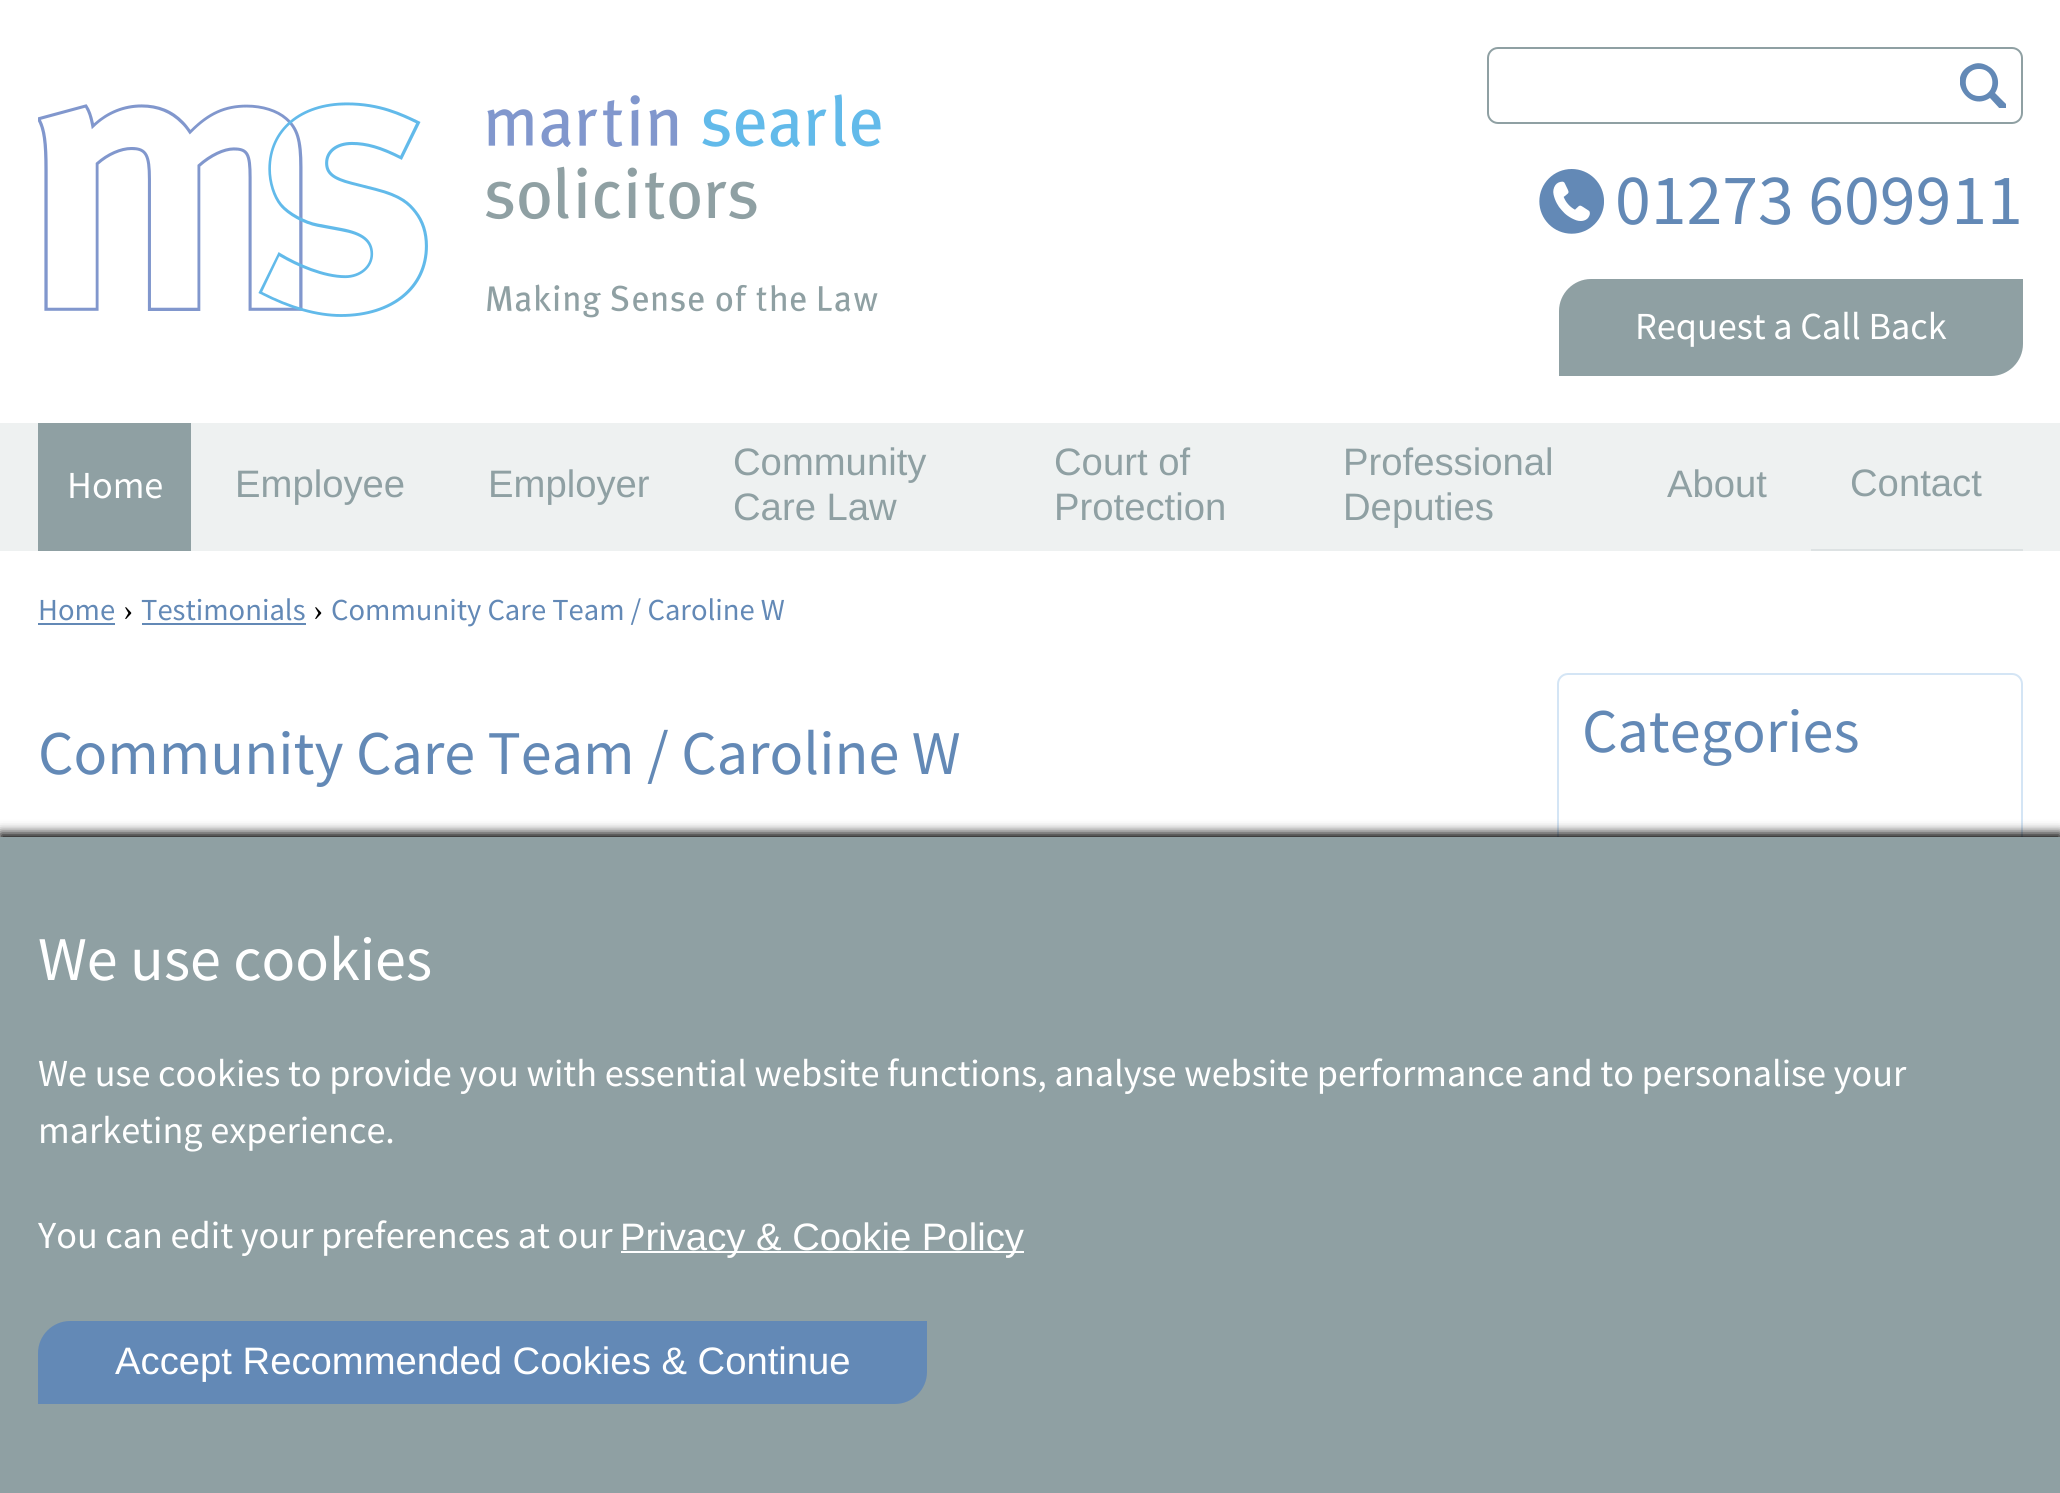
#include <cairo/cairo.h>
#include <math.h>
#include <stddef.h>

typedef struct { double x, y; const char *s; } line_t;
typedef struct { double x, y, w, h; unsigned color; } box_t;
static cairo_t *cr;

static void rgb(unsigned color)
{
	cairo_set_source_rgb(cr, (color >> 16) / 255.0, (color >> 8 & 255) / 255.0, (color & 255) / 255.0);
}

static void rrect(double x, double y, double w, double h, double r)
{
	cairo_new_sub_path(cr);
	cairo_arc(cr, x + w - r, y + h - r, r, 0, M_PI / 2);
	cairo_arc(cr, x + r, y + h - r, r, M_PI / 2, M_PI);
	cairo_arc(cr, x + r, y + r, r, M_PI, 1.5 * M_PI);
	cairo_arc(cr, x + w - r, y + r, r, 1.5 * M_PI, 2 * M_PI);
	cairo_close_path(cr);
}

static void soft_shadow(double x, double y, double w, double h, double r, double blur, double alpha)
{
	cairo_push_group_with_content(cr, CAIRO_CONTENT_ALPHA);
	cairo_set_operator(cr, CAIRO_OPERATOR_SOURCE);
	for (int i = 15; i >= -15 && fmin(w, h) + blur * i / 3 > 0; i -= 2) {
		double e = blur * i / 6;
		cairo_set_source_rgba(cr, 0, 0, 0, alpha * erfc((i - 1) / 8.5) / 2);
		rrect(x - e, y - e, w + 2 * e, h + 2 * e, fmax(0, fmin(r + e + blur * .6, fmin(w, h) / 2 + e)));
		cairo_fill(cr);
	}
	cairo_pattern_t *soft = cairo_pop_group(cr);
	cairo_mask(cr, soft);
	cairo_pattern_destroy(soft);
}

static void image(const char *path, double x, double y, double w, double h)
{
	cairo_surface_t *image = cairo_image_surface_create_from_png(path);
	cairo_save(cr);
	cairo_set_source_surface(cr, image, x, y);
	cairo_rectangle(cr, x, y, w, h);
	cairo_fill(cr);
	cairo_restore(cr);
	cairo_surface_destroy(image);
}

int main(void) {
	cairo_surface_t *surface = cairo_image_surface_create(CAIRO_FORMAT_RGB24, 2060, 1493);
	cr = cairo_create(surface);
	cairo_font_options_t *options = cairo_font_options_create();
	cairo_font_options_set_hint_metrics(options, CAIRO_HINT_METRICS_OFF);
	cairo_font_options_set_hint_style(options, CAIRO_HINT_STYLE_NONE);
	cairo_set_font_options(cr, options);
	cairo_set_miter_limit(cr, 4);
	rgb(0xffffff);
	cairo_paint(cr);
	image("img/1.png", 38, 94, 843, 224);
	rrect(1488, 48, 534, 75, 10);
	rgb(0x8fa0a3);
	cairo_stroke(cr);
	cairo_save(cr);
	cairo_rectangle(cr, 1960, 63, 46, 45);
	cairo_clip(cr);
	rgb(0x6389b6);
	cairo_new_path(cr);
	cairo_move_to(cr, 1979, 96);
	cairo_curve_to(cr, 1962, 96, 1961, 70, 1978, 69);
	cairo_curve_to(cr, 1997, 68, 1997, 96, 1979, 96);
	cairo_move_to(cr, 2005, 103);
	cairo_line_to(cr, 1995, 93);
	cairo_curve_to(cr, 2001, 84, 1998, 71, 1988, 66);
	cairo_curve_to(cr, 1983, 63, 1977, 62, 1971, 65);
	cairo_curve_to(cr, 1946, 76, 1967, 113, 1990, 98);
	cairo_line_to(cr, 2001, 110);
	cairo_curve_to(cr, 2005, 112, 2009, 106, 2005, 103);
	cairo_fill(cr);
	cairo_restore(cr);
	image("img/2.png", 1539, 169, 65, 65);
	cairo_new_path(cr);
	cairo_move_to(cr, 1591, 279);
	cairo_line_to(cr, 2023, 279);
	cairo_line_to(cr, 2023, 344);
	cairo_curve_to(cr, 2023, 361.5, 2008.5, 376, 1991, 376);
	cairo_line_to(cr, 1559, 376);
	cairo_line_to(cr, 1559, 311);
	cairo_curve_to(cr, 1559, 293.5, 1573.5, 279, 1591, 279);
	cairo_close_path(cr);
	cairo_fill(cr);
	{
		static const box_t items[] = {
			{0, 423, 2060, 128, 0xeef1f1},
			{38, 423, 153, 128, 0x8fa0a3},
			{1809, 549, 214, 2, 0xdde2e3},
			{1809, 549, 2, 2, 0xeef1f1},
			{38, 623, 77, 2, 0x6389b6},
			{142, 623, 164, 2, 0x6389b6},
		};
		for (size_t i = 0; i < sizeof items / sizeof *items; i++) {
			rgb(items[i].color);
			cairo_rectangle(cr, items[i].x, items[i].y, items[i].w, items[i].h);
			cairo_fill(cr);
		}
	}
	rrect(1558, 674, 464, 594, 10);
	rgb(0xd4e5f5);
	cairo_stroke(cr);
	rgb(0x000000);
	soft_shadow(0, 833, 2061, 657, 0, 5.5, 1);
	rgb(0x8fa0a3);
	cairo_rectangle(cr, 0, 837, 2060, 656);
	cairo_fill(cr);
	rgb(0xffffff);
	cairo_rectangle(cr, 621, 1251, 403, 2);
	cairo_fill(cr);
	rgb(0x6389b6);
	cairo_new_path(cr);
	cairo_move_to(cr, 70, 1321);
	cairo_line_to(cr, 927, 1321);
	cairo_line_to(cr, 927, 1372);
	cairo_curve_to(cr, 927, 1389.5, 912.5, 1404, 895, 1404);
	cairo_line_to(cr, 38, 1404);
	cairo_line_to(cr, 38, 1353);
	cairo_curve_to(cr, 38, 1335.5, 52.5, 1321, 70, 1321);
	cairo_close_path(cr);
	cairo_fill(cr);
	cairo_select_font_face(cr, "Source Sans Pro", CAIRO_FONT_SLANT_NORMAL, CAIRO_FONT_WEIGHT_NORMAL);
	cairo_set_font_size(cr, 72);
	cairo_move_to(cr, 1615, 224);
	cairo_show_text(cr, "01273 609911");
	cairo_set_font_size(cr, 38.25);
	rgb(0xffffff);
	cairo_move_to(cr, 1635, 339);
	cairo_show_text(cr, "Request a Call Back");
	cairo_move_to(cr, 67, 498);
	cairo_show_text(cr, "Home");
	cairo_select_font_face(cr, "Liberation Sans", CAIRO_FONT_SLANT_NORMAL, CAIRO_FONT_WEIGHT_NORMAL);
	rgb(0x8fa0a3);
	{
		static const line_t items[] = {
			{235, 497, "Employee"},
			{488, 497, "Employer"},
			{733, 475, "Community"},
			{733, 520, "Care Law"},
			{1054, 475, "Court of"},
			{1054, 520, "Protection"},
			{1343, 475, "Professional"},
			{1343, 520, "Deputies"},
			{1667, 497, "About"},
			{1850, 496, "Contact"},
		};
		for (size_t i = 0; i < sizeof items / sizeof *items; i++) {
			cairo_move_to(cr, items[i].x, items[i].y);
			cairo_show_text(cr, items[i].s);
		}
	}
	cairo_select_font_face(cr, "Source Sans Pro", CAIRO_FONT_SLANT_NORMAL, CAIRO_FONT_WEIGHT_NORMAL);
	cairo_set_font_size(cr, 30.6);
	rgb(0x6389b6);
	cairo_move_to(cr, 38, 620);
	cairo_show_text(cr, "Home");
	cairo_select_font_face(cr, "Liberation Serif", CAIRO_FONT_SLANT_NORMAL, CAIRO_FONT_WEIGHT_NORMAL);
	rgb(0x000000);
	cairo_move_to(cr, 123, 620);
	cairo_show_text(cr, "›");
	cairo_select_font_face(cr, "Source Sans Pro", CAIRO_FONT_SLANT_NORMAL, CAIRO_FONT_WEIGHT_NORMAL);
	rgb(0x6389b6);
	cairo_move_to(cr, 141, 620);
	cairo_show_text(cr, "Testimonials");
	cairo_select_font_face(cr, "Liberation Serif", CAIRO_FONT_SLANT_NORMAL, CAIRO_FONT_WEIGHT_NORMAL);
	rgb(0x000000);
	cairo_move_to(cr, 313, 620);
	cairo_show_text(cr, "›");
	cairo_select_font_face(cr, "Source Sans Pro", CAIRO_FONT_SLANT_NORMAL, CAIRO_FONT_WEIGHT_NORMAL);
	rgb(0x6389b6);
	cairo_move_to(cr, 331, 620);
	cairo_show_text(cr, "Community Care Team / Caroline W");
	cairo_set_font_size(cr, 62.2);
	cairo_move_to(cr, 38, 774);
	cairo_show_text(cr, "Community Care Team / Caroline W");
	cairo_move_to(cr, 1582, 752);
	cairo_show_text(cr, "Categories");
	rgb(0xffffff);
	cairo_move_to(cr, 38, 980);
	cairo_show_text(cr, "We use cookies");
	cairo_set_font_size(cr, 38.25);
	{
		static const line_t items[] = {
			{38, 1086, "We use cookies to provide you with essential website functions, analyse website performance and to personalise your"},
			{38, 1143, "marketing experience."},
			{38, 1248, "You can edit your preferences at our"},
		};
		for (size_t i = 0; i < sizeof items / sizeof *items; i++) {
			cairo_move_to(cr, items[i].x, items[i].y);
			cairo_show_text(cr, items[i].s);
		}
	}
	cairo_select_font_face(cr, "Liberation Sans", CAIRO_FONT_SLANT_NORMAL, CAIRO_FONT_WEIGHT_NORMAL);
	cairo_move_to(cr, 620, 1250);
	cairo_show_text(cr, "Privacy & Cookie Policy");
	cairo_move_to(cr, 115, 1374);
	cairo_show_text(cr, "Accept Recommended Cookies & Continue");
	cairo_surface_write_to_png(surface, "page.png");
	cairo_font_options_destroy(options);
	cairo_destroy(cr);
	cairo_surface_destroy(surface);
	return 0;
}
